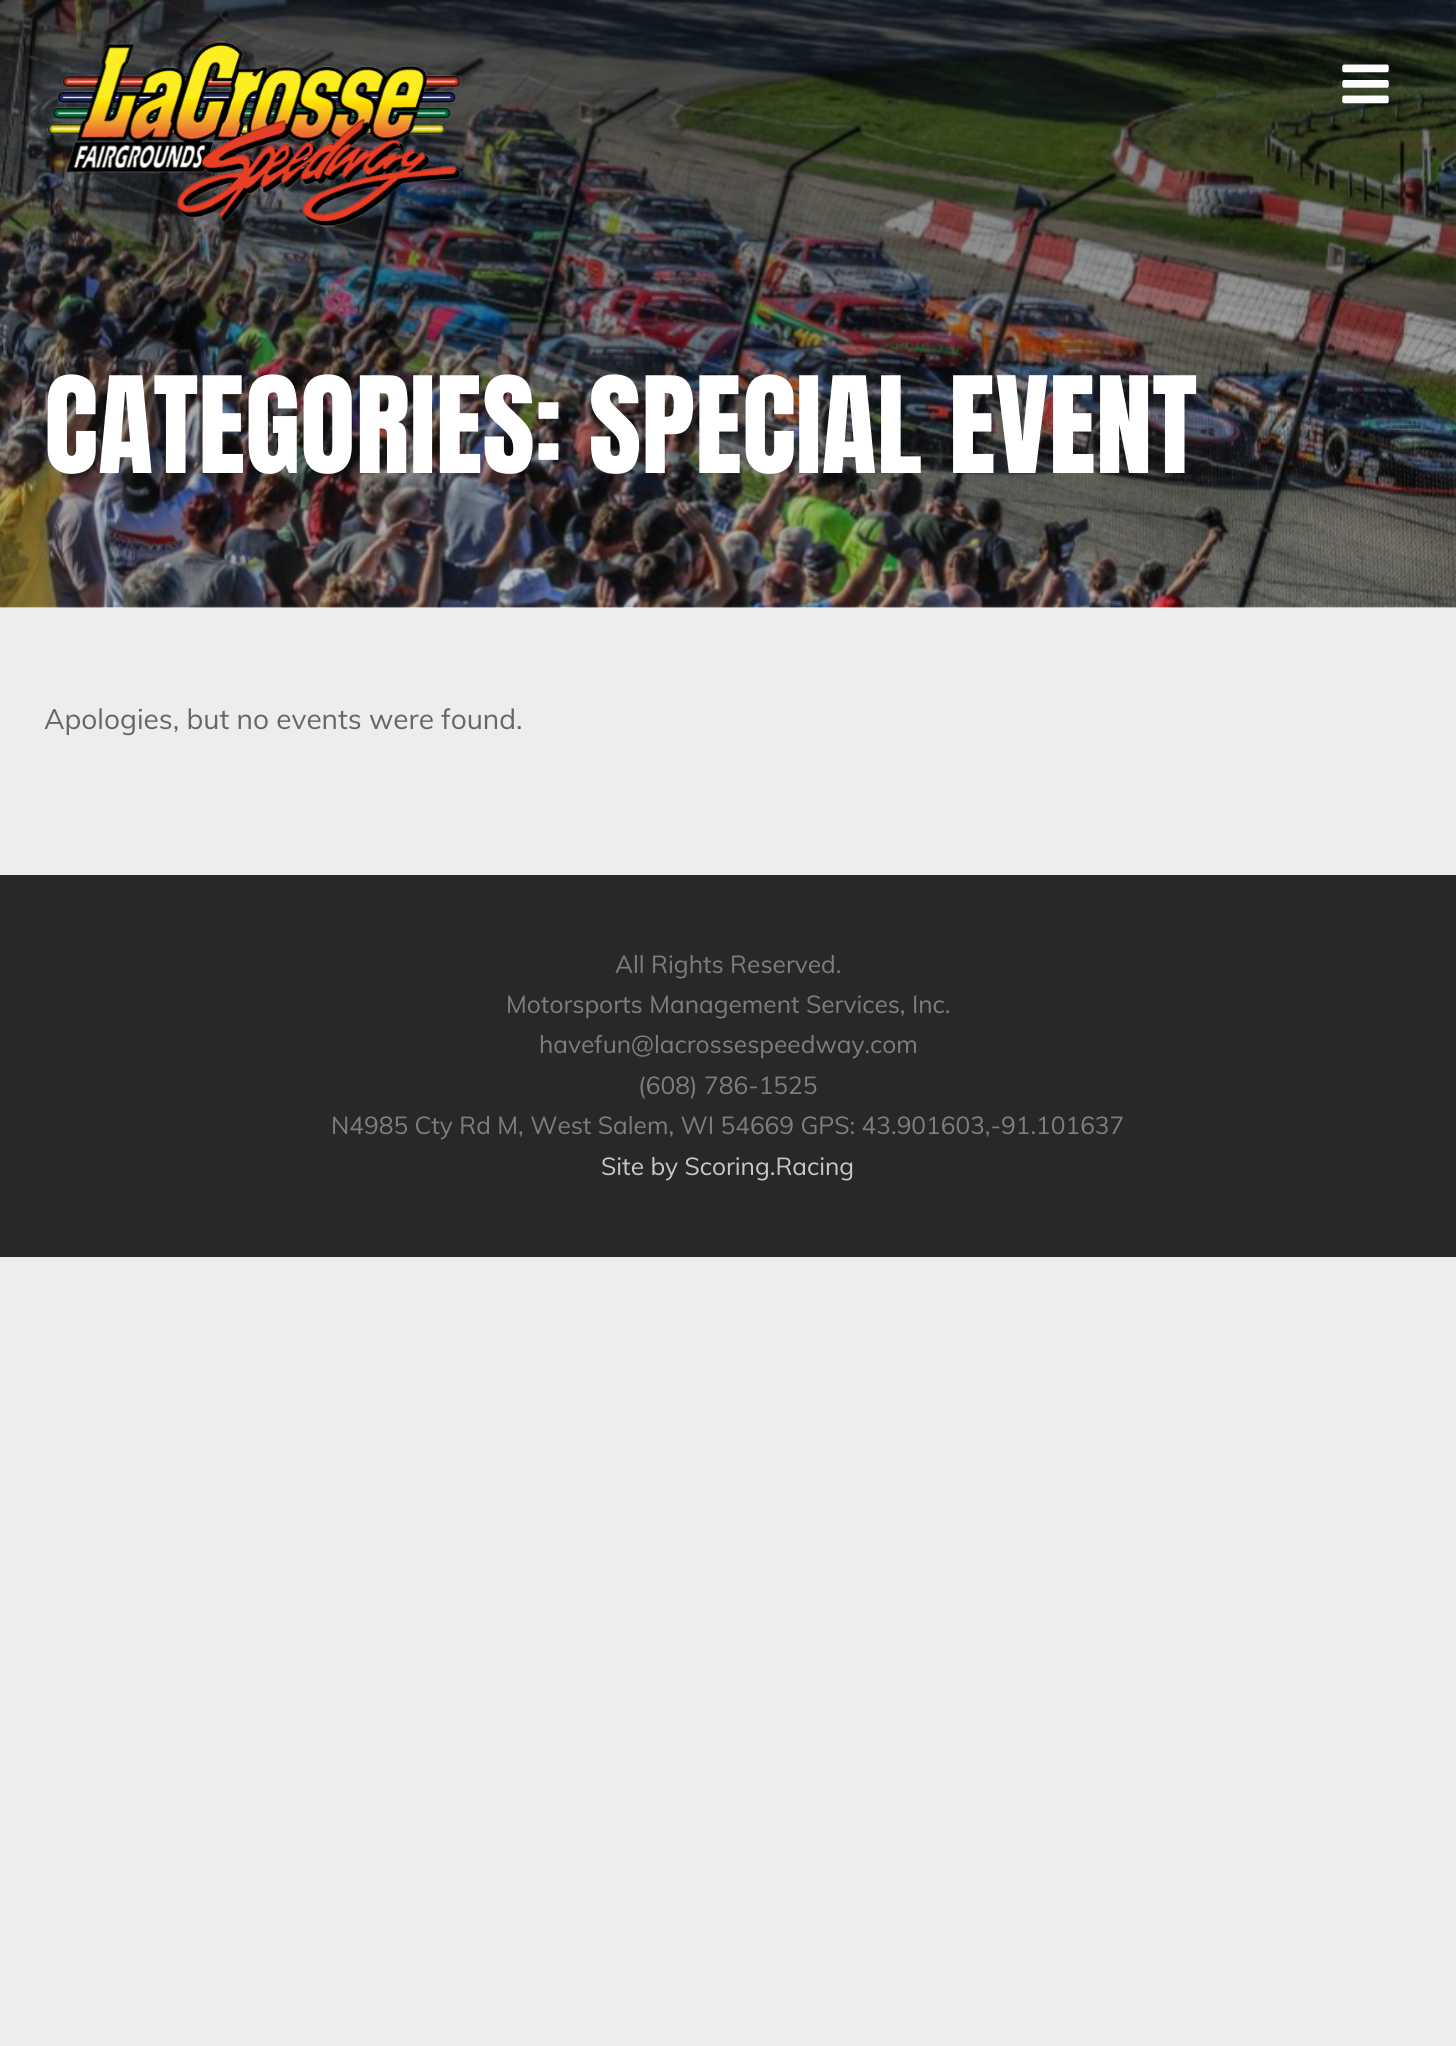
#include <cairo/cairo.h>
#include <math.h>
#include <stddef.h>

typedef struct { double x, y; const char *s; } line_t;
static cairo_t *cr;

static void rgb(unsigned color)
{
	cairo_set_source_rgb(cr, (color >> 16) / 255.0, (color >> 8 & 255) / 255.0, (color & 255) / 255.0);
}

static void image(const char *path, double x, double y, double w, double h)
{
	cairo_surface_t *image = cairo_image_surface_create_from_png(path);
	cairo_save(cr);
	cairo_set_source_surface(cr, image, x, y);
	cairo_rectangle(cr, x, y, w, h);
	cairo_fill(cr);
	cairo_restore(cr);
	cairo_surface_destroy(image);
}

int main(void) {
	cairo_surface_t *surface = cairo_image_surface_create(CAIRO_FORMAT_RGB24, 1456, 2046);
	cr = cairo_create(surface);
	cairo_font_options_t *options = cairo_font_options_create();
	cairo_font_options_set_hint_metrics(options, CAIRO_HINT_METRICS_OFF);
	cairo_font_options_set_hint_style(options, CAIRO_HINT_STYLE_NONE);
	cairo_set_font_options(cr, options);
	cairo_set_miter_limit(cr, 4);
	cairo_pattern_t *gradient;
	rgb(0xededed);
	cairo_paint(cr);
	image("img/3.png", 0, 0, 1456, 608);
	gradient = cairo_pattern_create_linear(728, 0, 728, 607);
	cairo_pattern_add_color_stop_rgba(gradient, 0.05, 0, 0, 0, 0.55);
	cairo_pattern_add_color_stop_rgba(gradient, 1, 0, 0, 0, 0.2);
	cairo_set_source(cr, gradient);
	cairo_pattern_destroy(gradient);
	cairo_rectangle(cr, 0, 0, 1456, 607);
	cairo_fill(cr);
	image("img/1.png", 47, 41, 415, 186);
	image("img/2.png", 1342, 64, 47, 40);
	rgb(0x282828);
	cairo_rectangle(cr, 0, 875, 1456, 382);
	cairo_fill(cr);
	cairo_select_font_face(cr, "Anton", CAIRO_FONT_SLANT_NORMAL, CAIRO_FONT_WEIGHT_NORMAL);
	cairo_set_font_size(cr, 113.75);
	rgb(0xffffff);
	cairo_move_to(cr, 44, 473);
	cairo_show_text(cr, "CATEGORIES: SPECIAL EVENT");
	cairo_select_font_face(cr, "Muli", CAIRO_FONT_SLANT_NORMAL, CAIRO_FONT_WEIGHT_NORMAL);
	cairo_set_font_size(cr, 28);
	rgb(0x666666);
	cairo_move_to(cr, 44, 729);
	cairo_show_text(cr, "Apologies, but no events were found.");
	cairo_set_font_size(cr, 24.5);
	rgb(0x7e7e7e);
	{
		static const line_t items[] = {
			{615, 973, "All Rights Reserved."},
			{506, 1013, "Motorsports Management Services, Inc."},
			{539, 1053, "havefun@lacrossespeedway.com"},
			{638, 1094, "(608) 786-1525"},
			{331, 1134, "N4985 Cty Rd M, West Salem, WI 54669 GPS: 43.901603,-91.101637"},
		};
		for (size_t i = 0; i < sizeof items / sizeof *items; i++) {
			cairo_move_to(cr, items[i].x, items[i].y);
			cairo_show_text(cr, items[i].s);
		}
	}
	rgb(0xc9c9c9);
	cairo_move_to(cr, 601, 1175);
	cairo_show_text(cr, "Site by Scoring.Racing");
	cairo_surface_write_to_png(surface, "page.png");
	cairo_font_options_destroy(options);
	cairo_destroy(cr);
	cairo_surface_destroy(surface);
	return 0;
}
